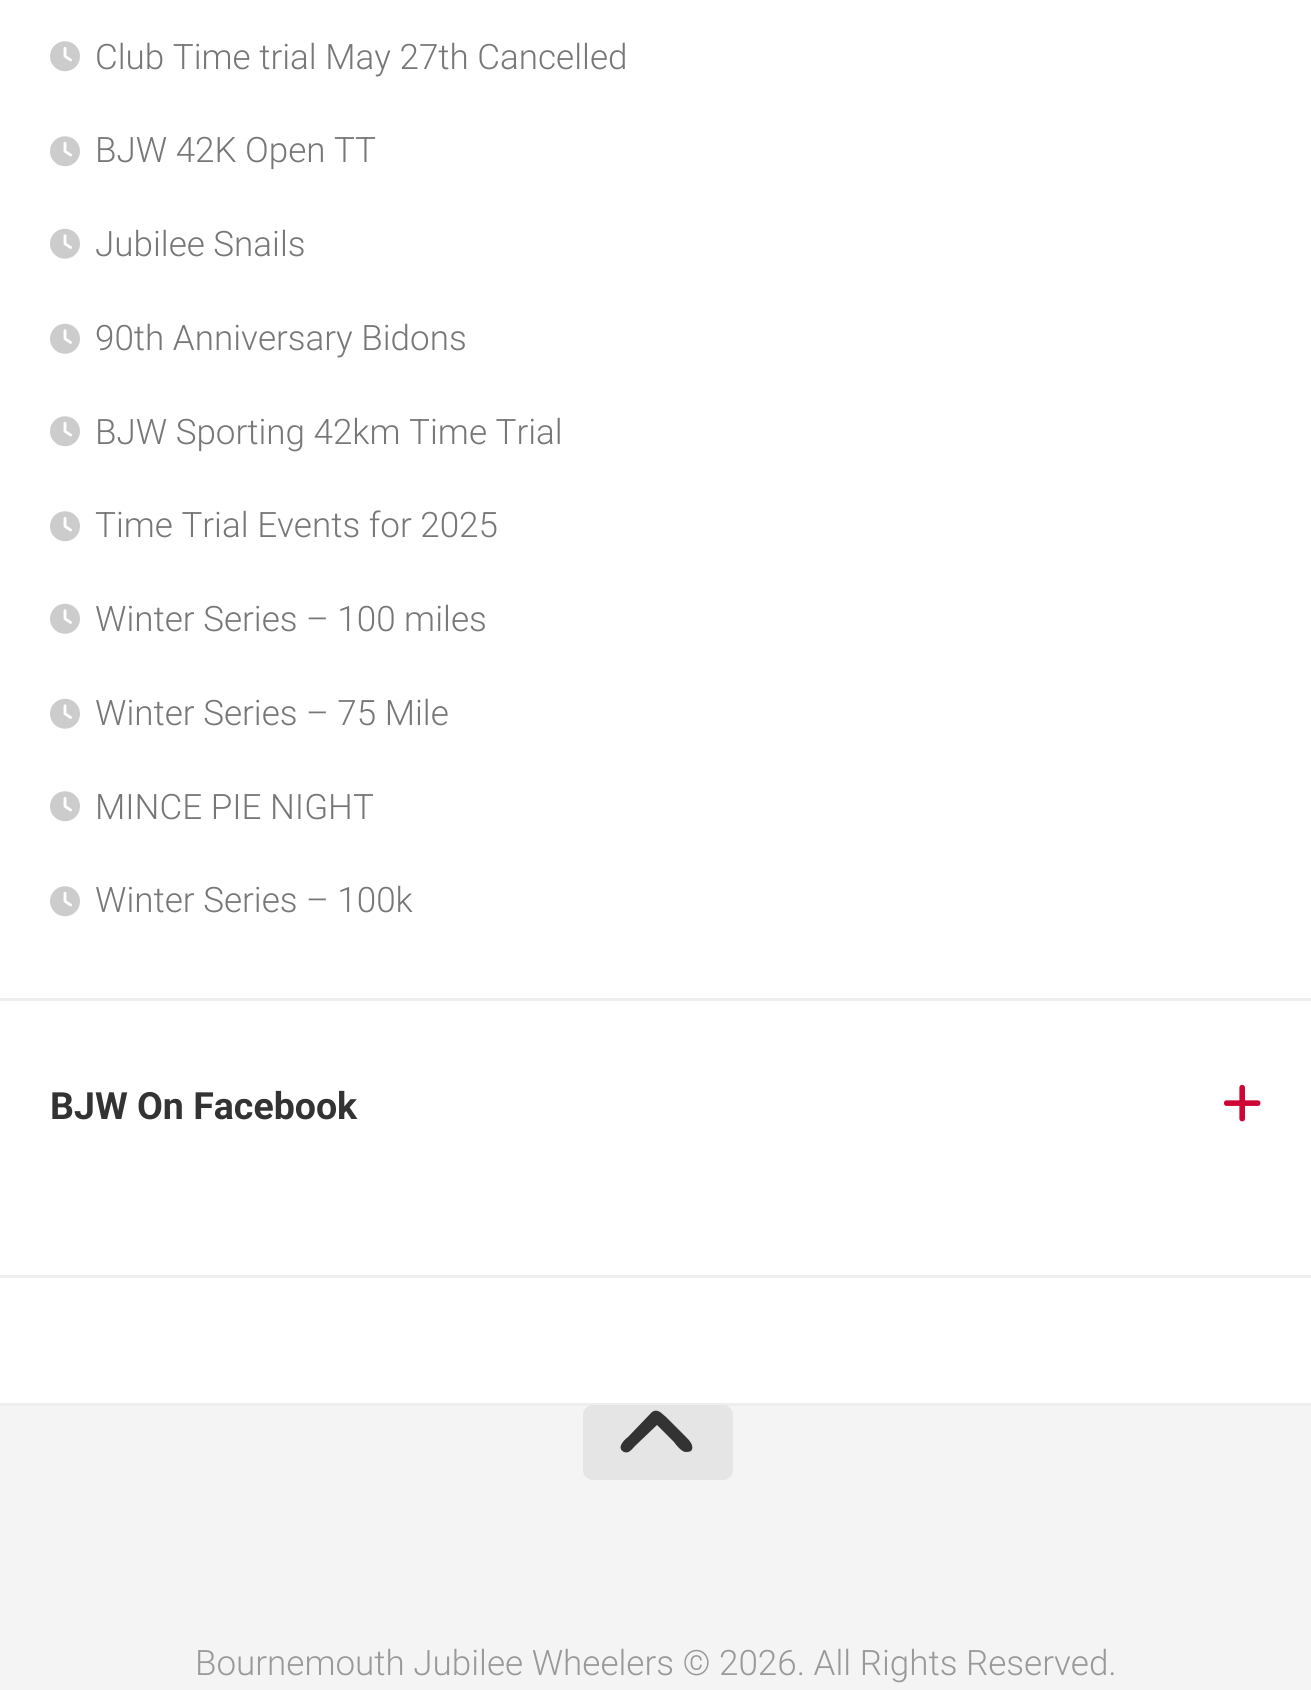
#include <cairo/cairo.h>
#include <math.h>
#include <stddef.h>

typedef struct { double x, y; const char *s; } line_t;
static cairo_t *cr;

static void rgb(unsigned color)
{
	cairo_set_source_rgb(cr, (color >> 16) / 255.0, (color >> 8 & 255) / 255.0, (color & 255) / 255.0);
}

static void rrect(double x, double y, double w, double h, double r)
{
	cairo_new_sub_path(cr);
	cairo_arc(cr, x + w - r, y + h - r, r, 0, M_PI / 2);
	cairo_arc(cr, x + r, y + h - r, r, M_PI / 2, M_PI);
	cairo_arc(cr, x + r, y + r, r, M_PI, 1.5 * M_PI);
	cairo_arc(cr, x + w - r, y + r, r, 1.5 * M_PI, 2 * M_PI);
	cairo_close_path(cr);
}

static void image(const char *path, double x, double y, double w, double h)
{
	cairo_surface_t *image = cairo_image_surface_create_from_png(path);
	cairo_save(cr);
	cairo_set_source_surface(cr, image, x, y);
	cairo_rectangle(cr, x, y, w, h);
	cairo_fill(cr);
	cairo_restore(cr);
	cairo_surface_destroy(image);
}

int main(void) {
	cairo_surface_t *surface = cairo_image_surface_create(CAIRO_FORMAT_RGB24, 1311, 1690);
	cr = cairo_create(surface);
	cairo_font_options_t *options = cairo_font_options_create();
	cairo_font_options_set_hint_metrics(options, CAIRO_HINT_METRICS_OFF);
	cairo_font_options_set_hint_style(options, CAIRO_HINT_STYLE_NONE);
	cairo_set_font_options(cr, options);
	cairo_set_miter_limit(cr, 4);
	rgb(0xffffff);
	cairo_paint(cr);
	rgb(0xeeeeee);
	cairo_rectangle(cr, 0, 998, 1311, 3);
	cairo_fill(cr);
	image("img/1.png", 50, 41, 30, 31);
	image("img/1.png", 50, 136, 30, 31);
	image("img/2.png", 50, 228, 30, 31);
	image("img/2.png", 50, 323, 30, 31);
	image("img/1.png", 50, 416, 30, 31);
	image("img/1.png", 50, 511, 30, 31);
	image("img/2.png", 50, 603, 30, 31);
	image("img/2.png", 50, 698, 30, 31);
	image("img/1.png", 50, 791, 30, 31);
	image("img/1.png", 50, 886, 30, 31);
	cairo_rectangle(cr, 0, 1275, 1311, 3);
	cairo_fill(cr);
	image("img/3.png", 1223, 1084, 38, 38);
	cairo_rectangle(cr, 0, 1403, 1311, 3);
	cairo_fill(cr);
	rgb(0xf4f4f4);
	cairo_rectangle(cr, 0, 1406, 1311, 284);
	cairo_fill(cr);
	rgb(0xe5e5e5);
	rrect(583, 1405, 150, 75, 10);
	cairo_fill(cr);
	rgb(0x333333);
	cairo_new_path(cr);
	cairo_move_to(cr, 652, 1412);
	cairo_curve_to(cr, 658, 1408, 662, 1414, 666, 1417);
	cairo_line_to(cr, 686, 1437);
	cairo_curve_to(cr, 689, 1440, 695, 1446, 691, 1451);
	cairo_curve_to(cr, 689, 1452, 687, 1452, 685, 1452);
	cairo_curve_to(cr, 681, 1451, 676, 1445, 674, 1442);
	cairo_line_to(cr, 657, 1425);
	cairo_line_to(cr, 635, 1446);
	cairo_curve_to(cr, 632, 1449, 629, 1454, 624, 1452);
	cairo_curve_to(cr, 616, 1448, 624, 1440, 628, 1437);
	cairo_close_path(cr);
	cairo_fill(cr);
	cairo_select_font_face(cr, "Roboto Light", CAIRO_FONT_SLANT_NORMAL, CAIRO_FONT_WEIGHT_NORMAL);
	cairo_set_font_size(cr, 35);
	rgb(0x777777);
	{
		static const line_t items[] = {
			{95, 69, "Club Time trial May 27th Cancelled"},
			{95, 162, "BJW 42K Open TT"},
			{95, 256, "Jubilee Snails"},
			{95, 350, "90th Anniversary Bidons"},
			{95, 444, "BJW Sporting 42km Time Trial"},
			{95, 537, "Time Trial Events for 2025"},
			{95, 631, "Winter Series – 100 miles"},
			{95, 725, "Winter Series – 75 Mile"},
			{95, 819, "MINCE PIE NIGHT"},
			{95, 912, "Winter Series – 100k"},
		};
		for (size_t i = 0; i < sizeof items / sizeof *items; i++) {
			cairo_move_to(cr, items[i].x, items[i].y);
			cairo_show_text(cr, items[i].s);
		}
	}
	cairo_select_font_face(cr, "Roboto", CAIRO_FONT_SLANT_NORMAL, CAIRO_FONT_WEIGHT_BOLD);
	cairo_set_font_size(cr, 37.5);
	rgb(0x333333);
	cairo_move_to(cr, 50, 1119);
	cairo_show_text(cr, "BJW On Facebook");
	cairo_select_font_face(cr, "Roboto Light", CAIRO_FONT_SLANT_NORMAL, CAIRO_FONT_WEIGHT_NORMAL);
	cairo_set_font_size(cr, 35);
	rgb(0x999999);
	cairo_move_to(cr, 195, 1675);
	cairo_show_text(cr, "Bournemouth Jubilee Wheelers © 2026. All Rights Reserved.");
	cairo_surface_write_to_png(surface, "page.png");
	cairo_font_options_destroy(options);
	cairo_destroy(cr);
	cairo_surface_destroy(surface);
	return 0;
}
